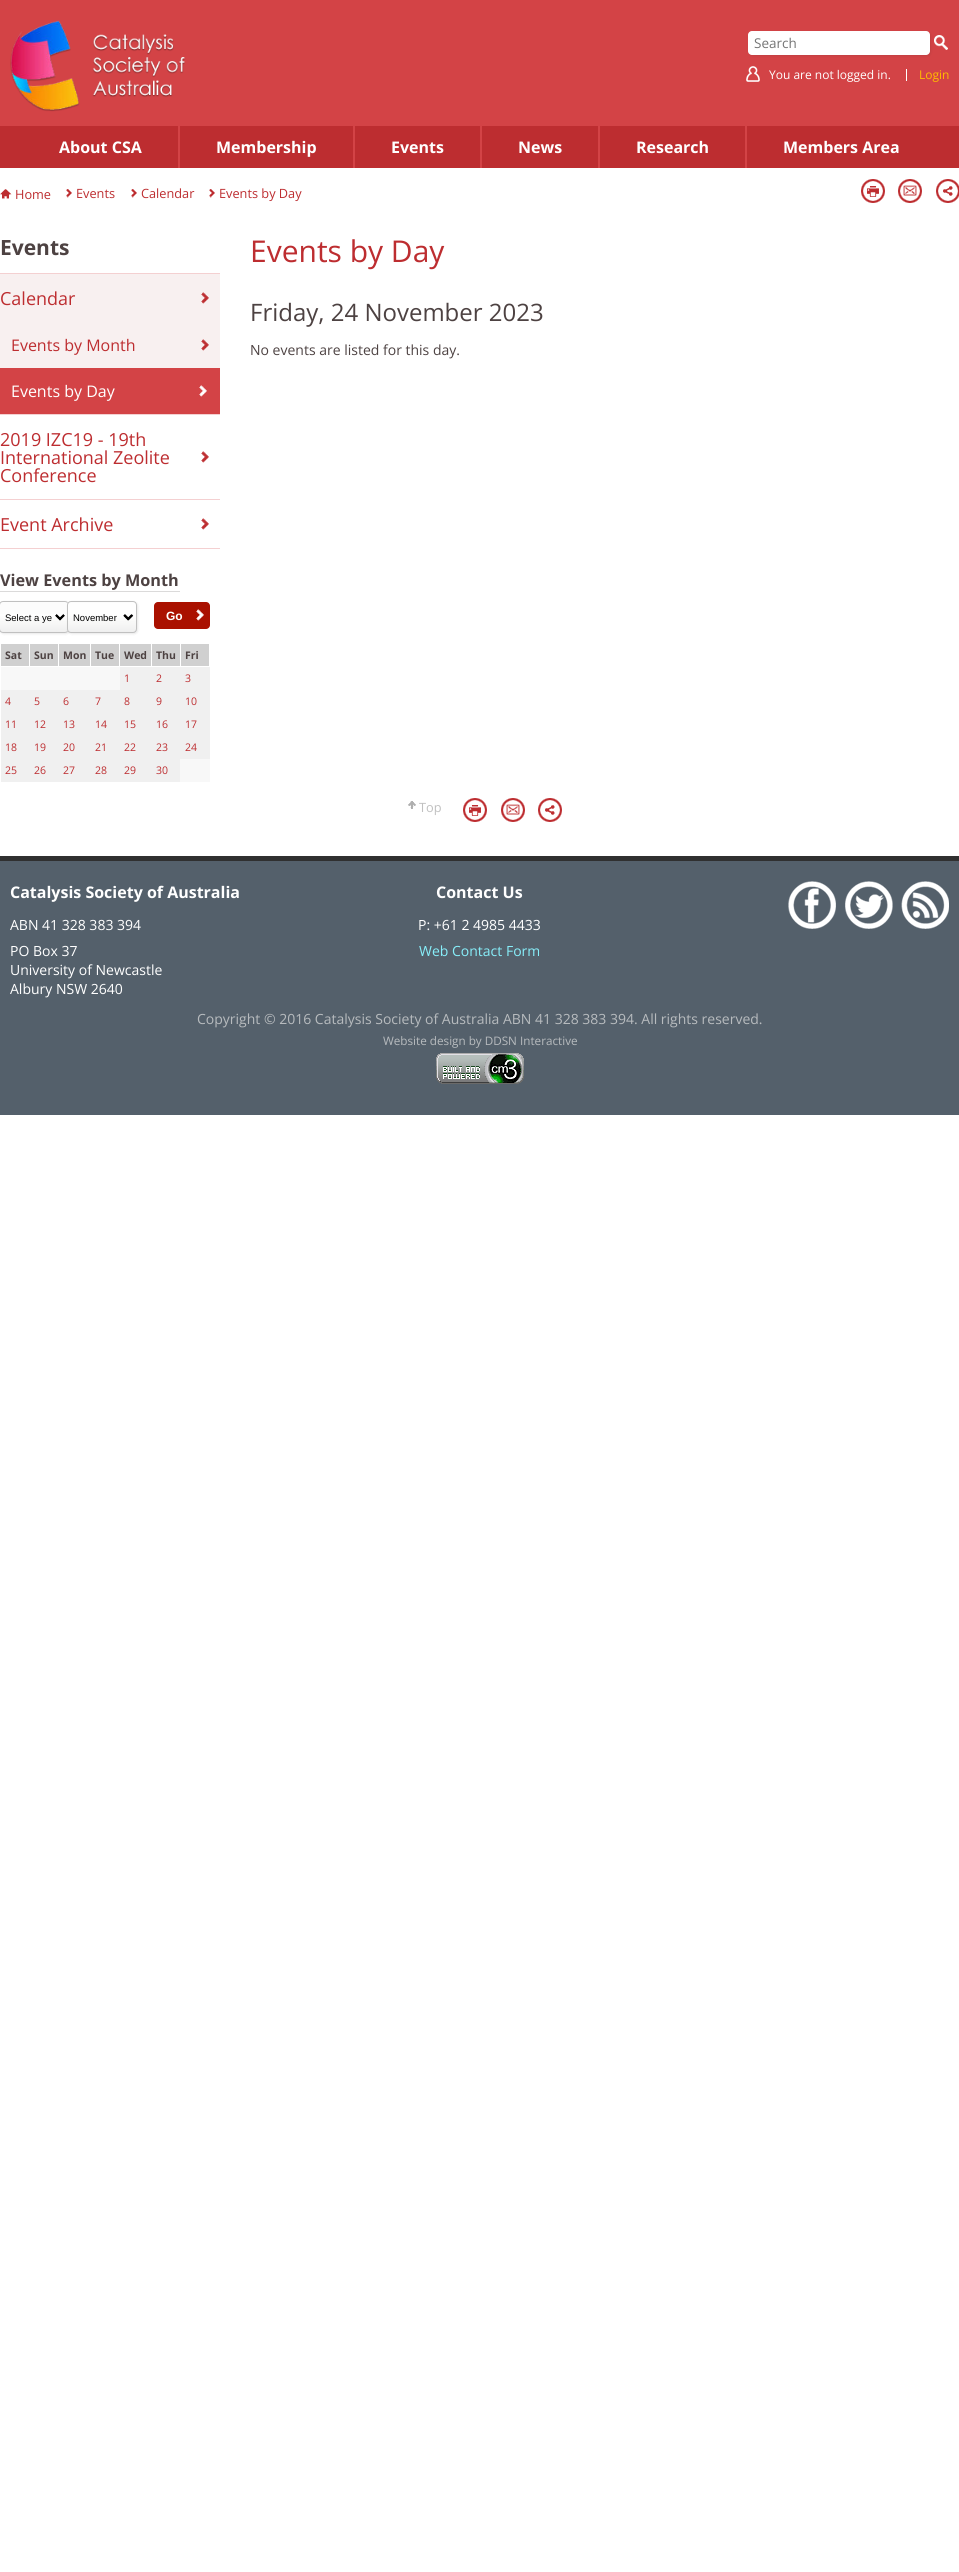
#include <cairo/cairo.h>
#include <math.h>
#include <stddef.h>

typedef struct { double x, y; const char *s; } line_t;
typedef struct { double x, y, w, h; unsigned color; } box_t;
static cairo_t *cr;

static void rgb(unsigned color)
{
	cairo_set_source_rgb(cr, (color >> 16) / 255.0, (color >> 8 & 255) / 255.0, (color & 255) / 255.0);
}

static void rrect(double x, double y, double w, double h, double r)
{
	cairo_new_sub_path(cr);
	cairo_arc(cr, x + w - r, y + h - r, r, 0, M_PI / 2);
	cairo_arc(cr, x + r, y + h - r, r, M_PI / 2, M_PI);
	cairo_arc(cr, x + r, y + r, r, M_PI, 1.5 * M_PI);
	cairo_arc(cr, x + w - r, y + r, r, 1.5 * M_PI, 2 * M_PI);
	cairo_close_path(cr);
}

static void soft_shadow(double x, double y, double w, double h, double r, double blur, double alpha)
{
	cairo_push_group_with_content(cr, CAIRO_CONTENT_ALPHA);
	cairo_set_operator(cr, CAIRO_OPERATOR_SOURCE);
	for (int i = 15; i >= -15 && fmin(w, h) + blur * i / 3 > 0; i -= 2) {
		double e = blur * i / 6;
		cairo_set_source_rgba(cr, 0, 0, 0, alpha * erfc((i - 1) / 8.5) / 2);
		rrect(x - e, y - e, w + 2 * e, h + 2 * e, fmax(0, fmin(r + e + blur * .6, fmin(w, h) / 2 + e)));
		cairo_fill(cr);
	}
	cairo_pattern_t *soft = cairo_pop_group(cr);
	cairo_mask(cr, soft);
	cairo_pattern_destroy(soft);
}

static void image(const char *path, double x, double y, double w, double h)
{
	cairo_surface_t *image = cairo_image_surface_create_from_png(path);
	cairo_save(cr);
	cairo_set_source_surface(cr, image, x, y);
	cairo_rectangle(cr, x, y, w, h);
	cairo_fill(cr);
	cairo_restore(cr);
	cairo_surface_destroy(image);
}

int main(void) {
	cairo_surface_t *surface = cairo_image_surface_create(CAIRO_FORMAT_RGB24, 959, 2572);
	cr = cairo_create(surface);
	cairo_font_options_t *options = cairo_font_options_create();
	cairo_font_options_set_hint_metrics(options, CAIRO_HINT_METRICS_OFF);
	cairo_font_options_set_hint_style(options, CAIRO_HINT_STYLE_NONE);
	cairo_set_font_options(cr, options);
	cairo_set_miter_limit(cr, 4);
	rgb(0xffffff);
	cairo_paint(cr);
	rgb(0xd34346);
	cairo_rectangle(cr, 0, 0, 959, 126);
	cairo_fill(cr);
	image("img/1.png", 10, 20, 175, 92);
	image("img/2.png", 934, 35, 14, 15);
	rgb(0x181818);
	soft_shadow(749, 32, 182, 24, 4, 1, 0.1);
	rgb(0xffffff);
	rrect(748, 31, 182, 24, 4);
	cairo_fill(cr);
	image("img/3.png", 746, 66, 14, 16);
	{
		static const box_t items[] = {
			{906, 69, 1, 12, 0xffffff},
			{0, 126, 959, 42, 0xbd2d30},
			{178, 126, 2, 42, 0xd34346},
			{353, 126, 2, 42, 0xd34346},
			{480, 126, 2, 42, 0xd34346},
			{598, 126, 2, 42, 0xd34346},
			{745, 126, 2, 42, 0xd34346},
		};
		for (size_t i = 0; i < sizeof items / sizeof *items; i++) {
			rgb(items[i].color);
			cairo_rectangle(cr, items[i].x, items[i].y, items[i].w, items[i].h);
			cairo_fill(cr);
		}
	}
	image("img/4.png", 0, 189, 12, 10);
	image("img/5.png", 66, 189, 6, 9);
	image("img/5.png", 131, 189, 6, 9);
	image("img/5.png", 209, 189, 6, 9);
	image("img/6.png", 861, 179, 24, 24);
	image("img/7.png", 898, 179, 24, 24);
	image("img/8.png", 936, 179, 23, 24);
	{
		static const box_t items[] = {
			{0, 273, 220, 1, 0xf4d0d1},
			{0, 274, 220, 94, 0xf8f0f0},
			{0, 414, 220, 1, 0xf4d0d1},
		};
		for (size_t i = 0; i < sizeof items / sizeof *items; i++) {
			rgb(items[i].color);
			cairo_rectangle(cr, items[i].x, items[i].y, items[i].w, items[i].h);
			cairo_fill(cr);
		}
	}
	image("img/9.png", 201, 292, 8, 12);
	image("img/9.png", 201, 339, 8, 12);
	rgb(0xd34346);
	cairo_rectangle(cr, 0, 368, 220, 46);
	cairo_fill(cr);
	image("img/10.png", 199, 385, 8, 12);
	rgb(0xf4d0d1);
	cairo_rectangle(cr, 0, 499, 220, 1);
	cairo_fill(cr);
	image("img/11.png", 201, 451, 8, 12);
	cairo_rectangle(cr, 0, 548, 220, 1);
	cairo_fill(cr);
	image("img/11.png", 201, 518, 8, 12);
	rgb(0xdbdada);
	cairo_rectangle(cr, 0, 591, 180, 1);
	cairo_fill(cr);
	rgb(0x181818);
	soft_shadow(0, 602, 70, 32, 4, 1, 0.1);
	rgb(0xfcfcfc);
	rrect(-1, 601, 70, 32, 4);
	cairo_fill(cr);
	image("img/12.png", 0, 614, 68, 18);
	rrect(-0.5, 601.5, 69, 31, 3.5);
	rgb(0xc0c0c0);
	cairo_set_line_width(cr, 1);
	cairo_stroke(cr);
	cairo_new_path(cr);
	cairo_move_to(cr, 56, 615);
	cairo_line_to(cr, 60, 619);
	cairo_line_to(cr, 64, 615);
	rgb(0x000000);
	cairo_set_line_width(cr, 2);
	cairo_stroke(cr);
	rgb(0x181818);
	soft_shadow(68, 602, 70, 32, 4, 1, 0.1);
	image("img/13.png", 67, 602, 70, 30);
	rrect(67.5, 601.5, 69, 31, 3.5);
	rgb(0xc0c0c0);
	cairo_set_line_width(cr, 1);
	cairo_stroke(cr);
	cairo_new_path(cr);
	cairo_move_to(cr, 124.5, 615);
	cairo_line_to(cr, 128.5, 619);
	cairo_line_to(cr, 132.5, 615);
	rgb(0x000000);
	cairo_set_line_width(cr, 2);
	cairo_stroke(cr);
	rgb(0xaa1100);
	rrect(154, 602, 56, 27, 4);
	cairo_fill(cr);
	image("img/14.png", 196, 609, 8, 12);
	{
		static const box_t items[] = {
			{1, 644, 28, 22, 0xd0d0d0},
			{30, 644, 28, 22, 0xd0d0d0},
			{59, 644, 31, 22, 0xd0d0d0},
			{91, 644, 28, 22, 0xd0d0d0},
			{120, 644, 31, 22, 0xd0d0d0},
			{152, 644, 28, 22, 0xd0d0d0},
			{181, 644, 28, 22, 0xd0d0d0},
			{1, 667, 119, 23, 0xf8f8f8},
			{120, 667, 90, 23, 0xf0f0f0},
			{1, 690, 209, 23, 0xf0f0f0},
			{1, 713, 209, 23, 0xf0f0f0},
			{1, 736, 209, 23, 0xf0f0f0},
			{1, 759, 179, 23, 0xf0f0f0},
			{180, 759, 30, 23, 0xf8f8f8},
		};
		for (size_t i = 0; i < sizeof items / sizeof *items; i++) {
			rgb(items[i].color);
			cairo_rectangle(cr, items[i].x, items[i].y, items[i].w, items[i].h);
			cairo_fill(cr);
		}
	}
	image("img/15.png", 408, 801, 8, 8);
	image("img/6.png", 463, 798, 24, 24);
	image("img/7.png", 501, 798, 24, 24);
	image("img/16.png", 538, 798, 24, 24);
	rgb(0x54606b);
	cairo_rectangle(cr, 0, 861, 959, 254);
	cairo_fill(cr);
	rgb(0x303030);
	cairo_rectangle(cr, 0, 856, 959, 5);
	cairo_fill(cr);
	image("img/17.png", 788, 881, 48, 48);
	image("img/18.png", 845, 881, 48, 48);
	image("img/19.png", 901, 881, 48, 48);
	image("img/20.png", 436, 1053, 88, 31);
	cairo_select_font_face(cr, "Open Sans", CAIRO_FONT_SLANT_NORMAL, CAIRO_FONT_WEIGHT_NORMAL);
	cairo_set_font_size(cr, 13.5);
	rgb(0x757575);
	cairo_move_to(cr, 754, 48);
	cairo_show_text(cr, "Search");
	cairo_set_font_size(cr, 12);
	rgb(0xffffff);
	cairo_move_to(cr, 769, 79);
	cairo_show_text(cr, "You are not logged in.");
	rgb(0xffba00);
	cairo_move_to(cr, 919, 79);
	cairo_show_text(cr, "Login");
	cairo_select_font_face(cr, "Open Sans", CAIRO_FONT_SLANT_NORMAL, CAIRO_FONT_WEIGHT_BOLD);
	cairo_set_font_size(cr, 16);
	rgb(0xffffff);
	{
		static const line_t items[] = {
			{59, 153, "About CSA"},
			{216, 153, "Membership"},
			{391, 153, "Events"},
			{518, 153, "News"},
			{636, 153, "Research"},
			{783, 153, "Members Area"},
		};
		for (size_t i = 0; i < sizeof items / sizeof *items; i++) {
			cairo_move_to(cr, items[i].x, items[i].y);
			cairo_show_text(cr, items[i].s);
		}
	}
	cairo_select_font_face(cr, "Open Sans", CAIRO_FONT_SLANT_NORMAL, CAIRO_FONT_WEIGHT_NORMAL);
	cairo_set_font_size(cr, 12.75);
	rgb(0xbd2d30);
	{
		static const line_t items[] = {
			{15, 199, "Home"},
			{76, 198, "Events"},
			{141, 198, "Calendar"},
			{219, 198, "Events by Day"},
		};
		for (size_t i = 0; i < sizeof items / sizeof *items; i++) {
			cairo_move_to(cr, items[i].x, items[i].y);
			cairo_show_text(cr, items[i].s);
		}
	}
	cairo_select_font_face(cr, "Open Sans", CAIRO_FONT_SLANT_NORMAL, CAIRO_FONT_WEIGHT_BOLD);
	cairo_set_font_size(cr, 21);
	rgb(0x4d4242);
	cairo_move_to(cr, 0, 255);
	cairo_show_text(cr, "Events");
	cairo_select_font_face(cr, "Open Sans", CAIRO_FONT_SLANT_NORMAL, CAIRO_FONT_WEIGHT_NORMAL);
	cairo_set_font_size(cr, 18);
	rgb(0xbd2d30);
	cairo_move_to(cr, 0, 305);
	cairo_show_text(cr, "Calendar");
	cairo_set_font_size(cr, 16);
	cairo_move_to(cr, 11, 351);
	cairo_show_text(cr, "Events by Month");
	rgb(0xffffff);
	cairo_move_to(cr, 11, 397);
	cairo_show_text(cr, "Events by Day");
	cairo_set_font_size(cr, 18);
	rgb(0xbd2d30);
	{
		static const line_t items[] = {
			{0, 446, "2019 IZC19 - 19th"},
			{0, 464, "International Zeolite"},
			{0, 482, "Conference"},
			{0, 531, "Event Archive"},
		};
		for (size_t i = 0; i < sizeof items / sizeof *items; i++) {
			cairo_move_to(cr, items[i].x, items[i].y);
			cairo_show_text(cr, items[i].s);
		}
	}
	cairo_select_font_face(cr, "Open Sans", CAIRO_FONT_SLANT_NORMAL, CAIRO_FONT_WEIGHT_BOLD);
	cairo_set_font_size(cr, 16.25);
	rgb(0x4d4242);
	cairo_move_to(cr, 0, 586);
	cairo_show_text(cr, "View Events by Month");
	cairo_select_font_face(cr, "Liberation Sans", CAIRO_FONT_SLANT_NORMAL, CAIRO_FONT_WEIGHT_NORMAL);
	cairo_set_font_size(cr, 9.5);
	rgb(0x000000);
	cairo_move_to(cr, 5, 621);
	cairo_show_text(cr, "Select a ye");
	cairo_move_to(cr, 73, 621);
	cairo_show_text(cr, "November");
	cairo_select_font_face(cr, "Liberation Sans", CAIRO_FONT_SLANT_NORMAL, CAIRO_FONT_WEIGHT_BOLD);
	cairo_set_font_size(cr, 12);
	rgb(0xffffff);
	cairo_move_to(cr, 166, 620);
	cairo_show_text(cr, "Go");
	cairo_select_font_face(cr, "Open Sans", CAIRO_FONT_SLANT_NORMAL, CAIRO_FONT_WEIGHT_BOLD);
	cairo_set_font_size(cr, 10.5);
	rgb(0x4d4242);
	{
		static const line_t items[] = {
			{5, 659, "Sat"},
			{34, 659, "Sun"},
			{63, 659, "Mon"},
			{95, 659, "Tue"},
			{124, 659, "Wed"},
			{156, 659, "Thu"},
			{185, 659, "Fri"},
		};
		for (size_t i = 0; i < sizeof items / sizeof *items; i++) {
			cairo_move_to(cr, items[i].x, items[i].y);
			cairo_show_text(cr, items[i].s);
		}
	}
	cairo_select_font_face(cr, "Open Sans", CAIRO_FONT_SLANT_NORMAL, CAIRO_FONT_WEIGHT_NORMAL);
	rgb(0xbd2d30);
	{
		static const line_t items[] = {
			{124, 682, "1"},
			{156, 682, "2"},
			{185, 682, "3"},
			{5, 705, "4"},
			{34, 705, "5"},
			{63, 705, "6"},
			{95, 705, "7"},
			{124, 705, "8"},
			{156, 705, "9"},
			{185, 705, "10"},
			{5, 728, "11"},
			{34, 728, "12"},
			{63, 728, "13"},
			{95, 728, "14"},
			{124, 728, "15"},
			{156, 728, "16"},
			{185, 728, "17"},
			{5, 751, "18"},
			{34, 751, "19"},
			{63, 751, "20"},
			{95, 751, "21"},
			{124, 751, "22"},
			{156, 751, "23"},
			{185, 751, "24"},
			{5, 774, "25"},
			{34, 774, "26"},
			{63, 774, "27"},
			{95, 774, "28"},
			{124, 774, "29"},
			{156, 774, "30"},
		};
		for (size_t i = 0; i < sizeof items / sizeof *items; i++) {
			cairo_move_to(cr, items[i].x, items[i].y);
			cairo_show_text(cr, items[i].s);
		}
	}
	cairo_set_font_size(cr, 30);
	cairo_move_to(cr, 250, 262);
	cairo_show_text(cr, "Events by Day");
	cairo_set_font_size(cr, 24);
	rgb(0x4d4242);
	cairo_move_to(cr, 250, 321);
	cairo_show_text(cr, "Friday, 24 November 2023");
	cairo_set_font_size(cr, 14);
	cairo_move_to(cr, 250, 355);
	cairo_show_text(cr, "No events are listed for this day.");
	cairo_set_font_size(cr, 12.75);
	rgb(0xc0c0c0);
	cairo_move_to(cr, 419, 812);
	cairo_show_text(cr, "Top");
	cairo_select_font_face(cr, "Open Sans", CAIRO_FONT_SLANT_NORMAL, CAIRO_FONT_WEIGHT_BOLD);
	cairo_set_font_size(cr, 16);
	rgb(0xffffff);
	cairo_move_to(cr, 10, 898);
	cairo_show_text(cr, "Catalysis Society of Australia");
	cairo_select_font_face(cr, "Open Sans", CAIRO_FONT_SLANT_NORMAL, CAIRO_FONT_WEIGHT_NORMAL);
	cairo_set_font_size(cr, 14);
	{
		static const line_t items[] = {
			{10, 930, "ABN 41 328 383 394"},
			{10, 956, "PO Box 37"},
			{10, 975, "University of Newcastle"},
			{10, 994, "Albury NSW 2640"},
		};
		for (size_t i = 0; i < sizeof items / sizeof *items; i++) {
			cairo_move_to(cr, items[i].x, items[i].y);
			cairo_show_text(cr, items[i].s);
		}
	}
	cairo_select_font_face(cr, "Open Sans", CAIRO_FONT_SLANT_NORMAL, CAIRO_FONT_WEIGHT_BOLD);
	cairo_set_font_size(cr, 16);
	cairo_move_to(cr, 436, 898);
	cairo_show_text(cr, "Contact Us");
	cairo_select_font_face(cr, "Open Sans", CAIRO_FONT_SLANT_NORMAL, CAIRO_FONT_WEIGHT_NORMAL);
	cairo_set_font_size(cr, 14);
	cairo_move_to(cr, 418, 930);
	cairo_show_text(cr, "P: +61 2 4985 4433");
	rgb(0x87effa);
	cairo_move_to(cr, 419, 956);
	cairo_show_text(cr, "Web Contact Form");
	rgb(0xb7bbbe);
	cairo_move_to(cr, 197, 1024);
	cairo_show_text(cr, "Copyright © 2016 Catalysis Society of Australia ABN 41 328 383 394. All rights reserved.");
	cairo_set_font_size(cr, 11.7);
	cairo_move_to(cr, 383, 1045);
	cairo_show_text(cr, "Website design by DDSN Interactive");
	cairo_surface_write_to_png(surface, "page.png");
	cairo_font_options_destroy(options);
	cairo_destroy(cr);
	cairo_surface_destroy(surface);
	return 0;
}
